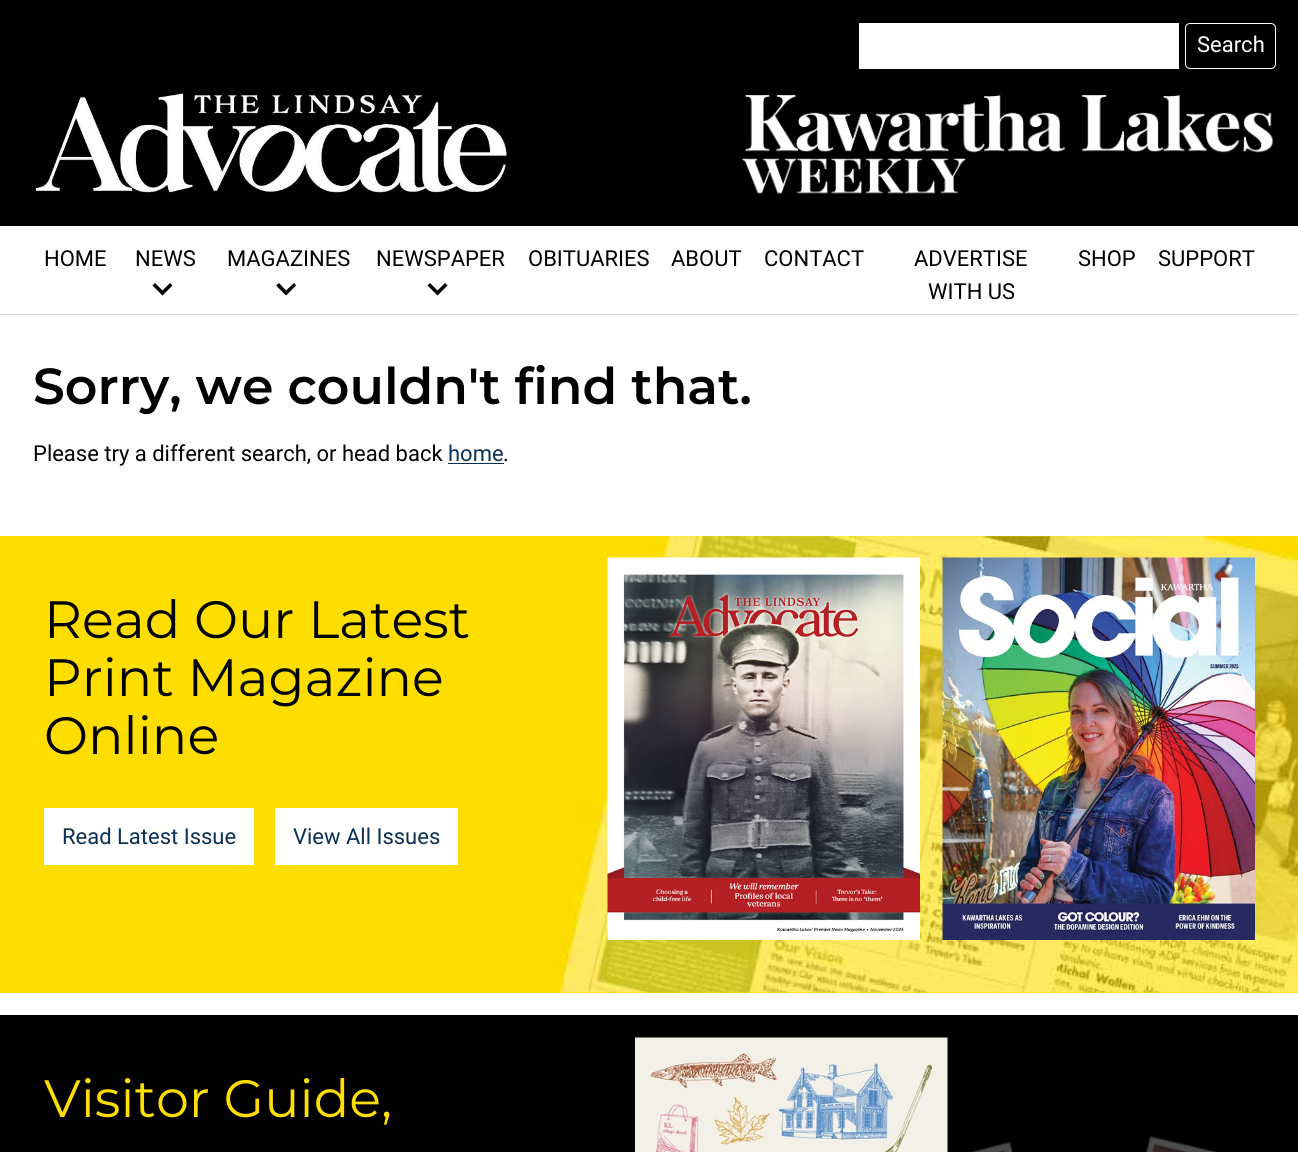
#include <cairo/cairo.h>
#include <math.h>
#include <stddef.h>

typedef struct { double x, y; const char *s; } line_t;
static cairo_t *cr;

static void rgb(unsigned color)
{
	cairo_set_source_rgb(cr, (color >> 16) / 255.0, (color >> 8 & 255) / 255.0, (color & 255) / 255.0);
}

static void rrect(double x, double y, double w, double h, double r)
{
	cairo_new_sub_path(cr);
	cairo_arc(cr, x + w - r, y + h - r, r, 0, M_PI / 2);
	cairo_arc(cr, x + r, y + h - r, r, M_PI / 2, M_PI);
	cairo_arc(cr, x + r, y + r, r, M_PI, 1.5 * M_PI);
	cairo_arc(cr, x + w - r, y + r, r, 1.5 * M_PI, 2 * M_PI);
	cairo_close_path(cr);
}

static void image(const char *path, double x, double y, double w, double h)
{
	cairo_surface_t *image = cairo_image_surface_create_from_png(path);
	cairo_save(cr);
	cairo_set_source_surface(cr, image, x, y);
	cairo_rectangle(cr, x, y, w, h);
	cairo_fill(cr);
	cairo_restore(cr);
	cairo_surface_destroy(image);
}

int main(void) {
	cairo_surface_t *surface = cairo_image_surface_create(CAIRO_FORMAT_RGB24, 1298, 1152);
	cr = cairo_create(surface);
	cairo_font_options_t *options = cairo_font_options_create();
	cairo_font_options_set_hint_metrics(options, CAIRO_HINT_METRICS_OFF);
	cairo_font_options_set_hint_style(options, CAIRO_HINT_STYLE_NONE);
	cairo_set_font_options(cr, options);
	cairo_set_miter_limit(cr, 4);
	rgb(0xffffff);
	cairo_paint(cr);
	rgb(0x000000);
	cairo_rectangle(cr, 0, 0, 1298, 226);
	cairo_fill(cr);
	image("img/1.png", 742, 94, 532, 100);
	rgb(0xffffff);
	cairo_rectangle(cr, 859, 23, 320, 46);
	cairo_fill(cr);
	rrect(1185.5, 23.5, 90, 45, 4.5);
	cairo_set_line_width(cr, 1);
	cairo_stroke(cr);
	image("img/2.png", 35, 93, 472, 100);
	rgb(0xd6d6d6);
	cairo_rectangle(cr, 0, 314, 1298, 1);
	cairo_fill(cr);
	rgb(0x000000);
	cairo_new_path(cr);
	cairo_move_to(cr, 172.5, 285.5);
	cairo_line_to(cr, 170, 283);
	cairo_line_to(cr, 162.5, 290.5);
	cairo_line_to(cr, 155, 283);
	cairo_line_to(cr, 152.5, 285.5);
	cairo_line_to(cr, 162.5, 295.5);
	cairo_close_path(cr);
	cairo_fill(cr);
	cairo_new_path(cr);
	cairo_move_to(cr, 296, 285.5);
	cairo_line_to(cr, 294, 283);
	cairo_line_to(cr, 286, 290.5);
	cairo_line_to(cr, 279, 283);
	cairo_line_to(cr, 276, 285.5);
	cairo_line_to(cr, 286, 295.5);
	cairo_close_path(cr);
	cairo_fill(cr);
	cairo_new_path(cr);
	cairo_move_to(cr, 447.5, 285.5);
	cairo_line_to(cr, 445, 283);
	cairo_line_to(cr, 437.5, 290.5);
	cairo_line_to(cr, 430, 283);
	cairo_line_to(cr, 427.5, 285.5);
	cairo_line_to(cr, 437.5, 295.5);
	cairo_close_path(cr);
	cairo_fill(cr);
	rgb(0x0b3055);
	cairo_rectangle(cr, 448, 463, 56, 1);
	cairo_fill(cr);
	rgb(0xffde05);
	cairo_rectangle(cr, 0, 536, 1298, 457);
	cairo_fill(cr);
	image("img/3.png", 0, 536, 1298, 457);
	rgb(0xffffff);
	cairo_rectangle(cr, 44, 808, 210, 57);
	cairo_fill(cr);
	cairo_rectangle(cr, 275, 808, 183, 57);
	cairo_fill(cr);
	image("img/4.png", 607, 557, 313, 383);
	image("img/5.png", 942, 557, 313, 383);
	rgb(0x000000);
	cairo_rectangle(cr, 0, 1015, 1298, 137);
	cairo_fill(cr);
	image("img/6.png", 971, 1136, 247, 16);
	image("img/7.png", 635, 1037, 313, 115);
	cairo_select_font_face(cr, "Roboto", CAIRO_FONT_SLANT_NORMAL, CAIRO_FONT_WEIGHT_NORMAL);
	cairo_set_font_size(cr, 22);
	rgb(0xffffff);
	cairo_move_to(cr, 1197, 52);
	cairo_show_text(cr, "Search");
	rgb(0x000000);
	{
		static const line_t items[] = {
			{44, 266, "HOME"},
			{135, 266, "NEWS"},
			{227, 266, "MAGAZINES"},
			{376, 266, "NEWSPAPER"},
			{528, 266, "OBITUARIES"},
			{671, 266, "ABOUT"},
			{764, 266, "CONTACT"},
			{914, 266, "ADVERTISE"},
			{928, 299, "WITH US"},
			{1078, 266, "SHOP"},
			{1158, 266, "SUPPORT"},
		};
		for (size_t i = 0; i < sizeof items / sizeof *items; i++) {
			cairo_move_to(cr, items[i].x, items[i].y);
			cairo_show_text(cr, items[i].s);
		}
	}
	cairo_select_font_face(cr, "Montserrat SemiBold", CAIRO_FONT_SLANT_NORMAL, CAIRO_FONT_WEIGHT_NORMAL);
	cairo_set_font_size(cr, 50.6);
	cairo_move_to(cr, 33, 404);
	cairo_show_text(cr, "Sorry, we couldn't find that.");
	cairo_select_font_face(cr, "Roboto", CAIRO_FONT_SLANT_NORMAL, CAIRO_FONT_WEIGHT_NORMAL);
	cairo_set_font_size(cr, 22);
	cairo_move_to(cr, 33, 461);
	cairo_show_text(cr, "Please try a different search, or head back");
	rgb(0x0b3055);
	cairo_move_to(cr, 448, 461);
	cairo_show_text(cr, "home");
	rgb(0x000000);
	cairo_move_to(cr, 503, 461);
	cairo_show_text(cr, ".");
	cairo_select_font_face(cr, "Montserrat", CAIRO_FONT_SLANT_NORMAL, CAIRO_FONT_WEIGHT_NORMAL);
	cairo_set_font_size(cr, 52.5);
	{
		static const line_t items[] = {
			{44, 638, "Read Our Latest"},
			{44, 696, "Print Magazine"},
			{44, 754, "Online"},
		};
		for (size_t i = 0; i < sizeof items / sizeof *items; i++) {
			cairo_move_to(cr, items[i].x, items[i].y);
			cairo_show_text(cr, items[i].s);
		}
	}
	cairo_select_font_face(cr, "Roboto", CAIRO_FONT_SLANT_NORMAL, CAIRO_FONT_WEIGHT_NORMAL);
	cairo_set_font_size(cr, 22);
	rgb(0x0b3055);
	cairo_move_to(cr, 62, 844);
	cairo_show_text(cr, "Read Latest Issue");
	cairo_move_to(cr, 293, 844);
	cairo_show_text(cr, "View All Issues");
	cairo_select_font_face(cr, "Montserrat", CAIRO_FONT_SLANT_NORMAL, CAIRO_FONT_WEIGHT_NORMAL);
	cairo_set_font_size(cr, 52.5);
	rgb(0xffde05);
	cairo_move_to(cr, 44, 1117);
	cairo_show_text(cr, "Visitor Guide,");
	cairo_surface_write_to_png(surface, "page.png");
	cairo_font_options_destroy(options);
	cairo_destroy(cr);
	cairo_surface_destroy(surface);
	return 0;
}
